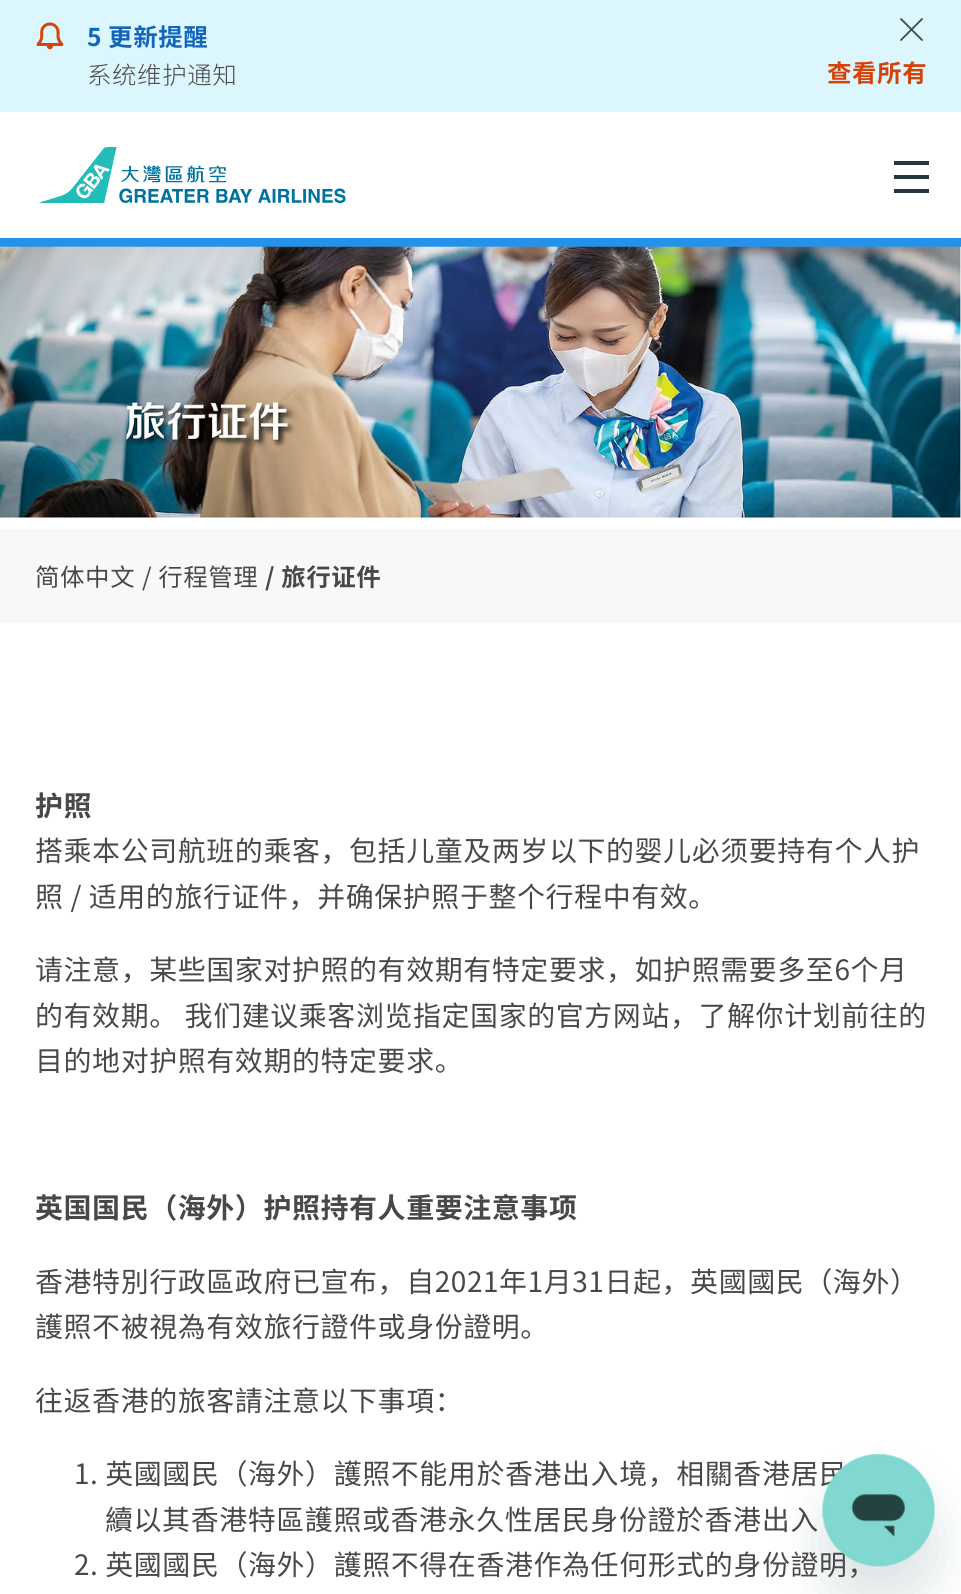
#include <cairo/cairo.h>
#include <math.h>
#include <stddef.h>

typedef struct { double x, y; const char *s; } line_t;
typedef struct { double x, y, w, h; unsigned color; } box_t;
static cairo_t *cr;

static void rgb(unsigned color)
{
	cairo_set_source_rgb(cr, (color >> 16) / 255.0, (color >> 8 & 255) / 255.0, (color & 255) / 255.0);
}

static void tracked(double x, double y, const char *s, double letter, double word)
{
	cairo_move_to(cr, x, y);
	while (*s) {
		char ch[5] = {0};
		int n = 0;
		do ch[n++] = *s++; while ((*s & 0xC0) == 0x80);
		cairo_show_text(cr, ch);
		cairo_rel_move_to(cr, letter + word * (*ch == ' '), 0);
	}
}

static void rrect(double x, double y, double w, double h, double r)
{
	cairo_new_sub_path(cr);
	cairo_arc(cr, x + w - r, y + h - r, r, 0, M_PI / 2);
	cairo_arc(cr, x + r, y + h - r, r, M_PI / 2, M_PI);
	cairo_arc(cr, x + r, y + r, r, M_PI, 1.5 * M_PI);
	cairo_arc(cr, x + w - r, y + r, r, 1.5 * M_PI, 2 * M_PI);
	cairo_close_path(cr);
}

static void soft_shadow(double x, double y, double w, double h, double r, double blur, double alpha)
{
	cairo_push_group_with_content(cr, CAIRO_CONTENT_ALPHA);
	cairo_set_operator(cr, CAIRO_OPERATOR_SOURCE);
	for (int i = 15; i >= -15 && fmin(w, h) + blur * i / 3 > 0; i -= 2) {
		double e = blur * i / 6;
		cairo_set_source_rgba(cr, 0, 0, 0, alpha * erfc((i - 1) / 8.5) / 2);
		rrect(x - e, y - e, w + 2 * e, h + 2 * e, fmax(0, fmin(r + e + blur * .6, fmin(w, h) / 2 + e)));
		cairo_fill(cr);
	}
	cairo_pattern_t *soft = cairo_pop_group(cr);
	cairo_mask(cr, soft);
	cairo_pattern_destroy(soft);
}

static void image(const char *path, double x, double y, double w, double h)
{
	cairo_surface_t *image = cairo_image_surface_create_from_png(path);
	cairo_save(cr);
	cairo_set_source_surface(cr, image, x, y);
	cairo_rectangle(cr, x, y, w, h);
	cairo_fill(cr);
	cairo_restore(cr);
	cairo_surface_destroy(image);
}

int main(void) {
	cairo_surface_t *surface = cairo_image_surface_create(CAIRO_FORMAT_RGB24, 961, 1594);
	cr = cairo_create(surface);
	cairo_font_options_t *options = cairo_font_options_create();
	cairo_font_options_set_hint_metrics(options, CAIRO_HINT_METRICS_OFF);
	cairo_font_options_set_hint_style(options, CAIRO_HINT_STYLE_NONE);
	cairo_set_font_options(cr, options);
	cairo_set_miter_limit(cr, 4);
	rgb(0xffffff);
	cairo_paint(cr);
	rgb(0xdcf6fe);
	cairo_rectangle(cr, 0, 0, 961, 112);
	cairo_fill(cr);
	image("img/1.png", 36, 22, 28, 28);
	cairo_new_path(cr);
	cairo_move_to(cr, 901, 19);
	cairo_line_to(cr, 922, 40);
	cairo_move_to(cr, 922, 19);
	cairo_line_to(cr, 901, 40);
	rgb(0x484848);
	cairo_set_line_width(cr, 1.8);
	cairo_set_line_cap(cr, CAIRO_LINE_CAP_ROUND);
	cairo_stroke(cr);
	rgb(0x2492eb);
	cairo_rectangle(cr, 0, 238, 961, 9);
	cairo_fill(cr);
	image("img/2.png", 39, 147, 307, 56);
	{
		static const box_t items[] = {
			{894, 161, 35, 4, 0x25363e},
			{894, 175, 35, 4, 0x25363e},
			{894, 189, 35, 4, 0x25363e},
		};
		for (size_t i = 0; i < sizeof items / sizeof *items; i++) {
			rgb(items[i].color);
			cairo_rectangle(cr, items[i].x, items[i].y, items[i].w, items[i].h);
			cairo_fill(cr);
		}
	}
	image("img/3.png", 0, 246, 961, 272);
	rgb(0xf8f8f8);
	cairo_rectangle(cr, 0, 529, 961, 94);
	cairo_fill(cr);
	rgb(0x17494d);
	soft_shadow(823, 1489, 112, 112, 56, 26, 0.15);
	cairo_select_font_face(cr, "Noto Sans SC", CAIRO_FONT_SLANT_NORMAL, CAIRO_FONT_WEIGHT_BOLD);
	cairo_set_font_size(cr, 24.5);
	rgb(0x1265ba);
	tracked(87, 46, "5 更新提醒", 0.55, 0);
	cairo_select_font_face(cr, "Noto Sans SC Light", CAIRO_FONT_SLANT_NORMAL, CAIRO_FONT_WEIGHT_NORMAL);
	rgb(0x484848);
	tracked(87, 84, "系统维护通知", 0.55, 0);
	cairo_select_font_face(cr, "Noto Sans SC", CAIRO_FONT_SLANT_NORMAL, CAIRO_FONT_WEIGHT_BOLD);
	rgb(0xd64308);
	tracked(827, 82, "查看所有", 0.55, 0);
	cairo_select_font_face(cr, "Noto Sans SC", CAIRO_FONT_SLANT_NORMAL, CAIRO_FONT_WEIGHT_NORMAL);
	rgb(0x484848);
	tracked(35, 586, "简体中文", 0.55, 0);
	tracked(142, 586, "/ 行程管理", 0.55, 0);
	cairo_select_font_face(cr, "Noto Sans SC", CAIRO_FONT_SLANT_NORMAL, CAIRO_FONT_WEIGHT_BOLD);
	tracked(265, 586, "/ 旅行证件", 0.55, 0);
	cairo_set_font_size(cr, 28);
	tracked(35, 816, "护照", 0.55, 0);
	cairo_select_font_face(cr, "Noto Sans SC", CAIRO_FONT_SLANT_NORMAL, CAIRO_FONT_WEIGHT_NORMAL);
	{
		static const line_t items[] = {
			{35, 861, "搭乘本公司航班的乘客，包括儿童及两岁以下的婴儿必须要持有个人护"},
			{35, 907, "照 / 适用的旅行证件，并确保护照于整个行程中有效。"},
			{35, 980, "请注意，某些国家对护照的有效期有特定要求，如护照需要多至6个月"},
			{35, 1026, "的有效期。 我们建议乘客浏览指定国家的官方网站，了解你计划前往的"},
			{35, 1071, "目的地对护照有效期的特定要求。"},
		};
		for (size_t i = 0; i < sizeof items / sizeof *items; i++) {
			tracked(items[i].x, items[i].y, items[i].s, 0.55, 0);
		}
	}
	cairo_select_font_face(cr, "Noto Sans SC", CAIRO_FONT_SLANT_NORMAL, CAIRO_FONT_WEIGHT_BOLD);
	tracked(35, 1218, "英国国民（海外）护照持有人重要注意事项", 0.55, 0);
	cairo_select_font_face(cr, "Noto Sans SC", CAIRO_FONT_SLANT_NORMAL, CAIRO_FONT_WEIGHT_NORMAL);
	{
		static const line_t items[] = {
			{35, 1292, "香港特別行政區政府已宣布，自2021年1月31日起，英國國民（海外）"},
			{35, 1337, "護照不被視為有效旅行證件或身份證明。"},
			{35, 1411, "往返香港的旅客請注意以下事項："},
			{74, 1484, "1. 英國國民（海外）護照不能用於香港出入境，相關香港居民"},
			{105, 1530, "續以其香港特區護照或香港永久性居民身份證於香港出入"},
			{74, 1575, "2. 英國國民（海外）護照不得在香港作為任何形式的身份證明，"},
		};
		for (size_t i = 0; i < sizeof items / sizeof *items; i++) {
			tracked(items[i].x, items[i].y, items[i].s, 0.55, 0);
		}
	}
	image("img/4.png", 822, 1454, 113, 113);
	cairo_surface_write_to_png(surface, "page.png");
	cairo_font_options_destroy(options);
	cairo_destroy(cr);
	cairo_surface_destroy(surface);
	return 0;
}
